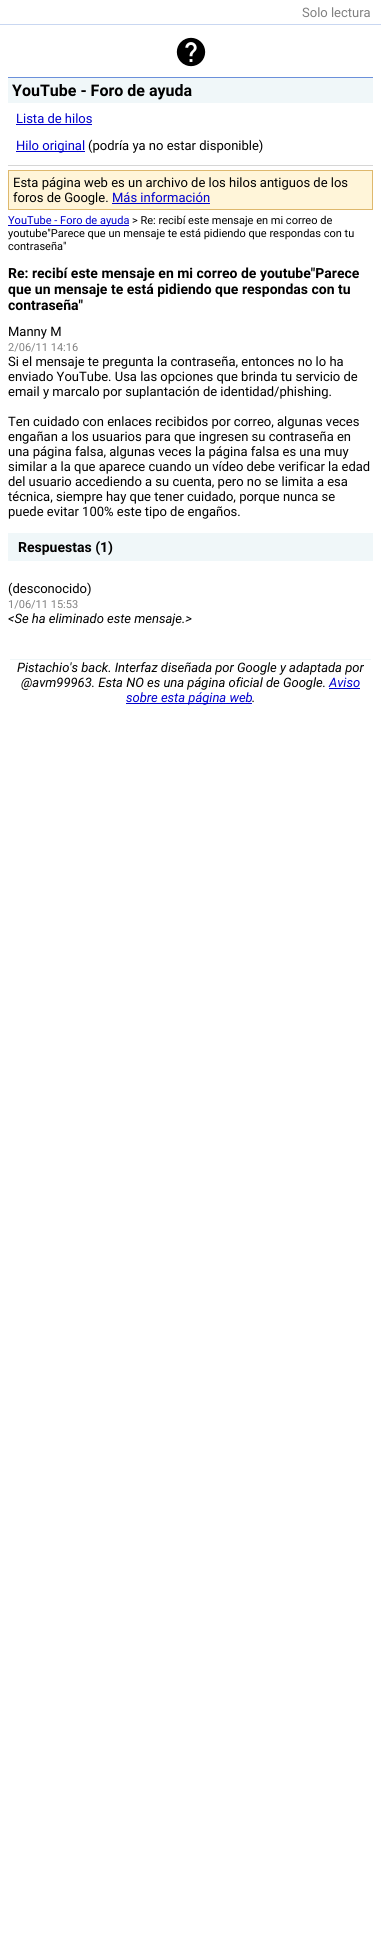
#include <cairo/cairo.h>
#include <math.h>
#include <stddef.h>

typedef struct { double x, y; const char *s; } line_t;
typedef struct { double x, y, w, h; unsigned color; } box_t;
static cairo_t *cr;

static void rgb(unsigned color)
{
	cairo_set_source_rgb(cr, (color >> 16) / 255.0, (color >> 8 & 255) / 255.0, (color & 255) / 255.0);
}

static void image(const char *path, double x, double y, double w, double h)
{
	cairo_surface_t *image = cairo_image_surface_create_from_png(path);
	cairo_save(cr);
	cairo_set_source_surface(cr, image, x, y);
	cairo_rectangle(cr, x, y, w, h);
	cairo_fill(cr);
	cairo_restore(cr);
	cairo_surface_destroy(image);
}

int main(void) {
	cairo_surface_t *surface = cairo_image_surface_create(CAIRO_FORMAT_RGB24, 381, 1958);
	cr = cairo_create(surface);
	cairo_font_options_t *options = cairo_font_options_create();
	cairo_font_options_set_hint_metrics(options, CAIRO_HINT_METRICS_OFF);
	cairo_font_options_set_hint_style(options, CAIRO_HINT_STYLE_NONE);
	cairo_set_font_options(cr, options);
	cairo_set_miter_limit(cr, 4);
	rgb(0xffffff);
	cairo_paint(cr);
	rgb(0xc9d7f1);
	cairo_rectangle(cr, 0, 24, 381, 1);
	cairo_fill(cr);
	image("img/1.png", 176, 37, 30, 30);
	{
		static const box_t items[] = {
			{8, 78, 365, 25, 0xf0f7f9},
			{8, 77, 365, 1, 0x6b90da},
			{8, 165, 365, 1, 0xd6d6d6},
			{16, 124, 76, 1, 0x0000cc},
			{16, 151, 69, 1, 0x0000cc},
		};
		for (size_t i = 0; i < sizeof items / sizeof *items; i++) {
			rgb(items[i].color);
			cairo_rectangle(cr, items[i].x, items[i].y, items[i].w, items[i].h);
			cairo_fill(cr);
		}
	}
	rgb(0xfff5d9);
	cairo_rectangle(cr, 8.5, 170.5, 364, 39);
	cairo_fill_preserve(cr);
	rgb(0xdeb86d);
	cairo_set_line_width(cr, 1);
	cairo_stroke(cr);
	{
		static const box_t items[] = {
			{112, 203, 98, 1, 0x0000cc},
			{8, 225, 121, 1, 0x0000cc},
			{8, 533, 365, 28, 0xf0f7f9},
			{10, 659, 361, 1, 0xf0f7f9},
			{329, 688, 31, 1, 0x0000cc},
			{126, 703, 126, 1, 0x0000cc},
		};
		for (size_t i = 0; i < sizeof items / sizeof *items; i++) {
			rgb(items[i].color);
			cairo_rectangle(cr, items[i].x, items[i].y, items[i].w, items[i].h);
			cairo_fill(cr);
		}
	}
	cairo_select_font_face(cr, "Roboto", CAIRO_FONT_SLANT_NORMAL, CAIRO_FONT_WEIGHT_NORMAL);
	cairo_set_font_size(cr, 13);
	rgb(0x808080);
	cairo_move_to(cr, 302, 17);
	cairo_show_text(cr, "Solo lectura");
	cairo_select_font_face(cr, "Roboto", CAIRO_FONT_SLANT_NORMAL, CAIRO_FONT_WEIGHT_BOLD);
	cairo_set_font_size(cr, 16);
	rgb(0x000000);
	cairo_move_to(cr, 12, 96);
	cairo_show_text(cr, "YouTube - Foro de ayuda");
	cairo_select_font_face(cr, "Roboto", CAIRO_FONT_SLANT_NORMAL, CAIRO_FONT_WEIGHT_NORMAL);
	cairo_set_font_size(cr, 13);
	rgb(0x0000cc);
	cairo_move_to(cr, 16, 123);
	cairo_show_text(cr, "Lista de hilos");
	cairo_move_to(cr, 16, 150);
	cairo_show_text(cr, "Hilo original");
	rgb(0x000000);
	{
		static const line_t items[] = {
			{88, 150, "(podría ya no estar disponible)"},
			{13, 187, "Esta página web es un archivo de los hilos antiguos de los"},
			{13, 202, "foros de Google."},
		};
		for (size_t i = 0; i < sizeof items / sizeof *items; i++) {
			cairo_move_to(cr, items[i].x, items[i].y);
			cairo_show_text(cr, items[i].s);
		}
	}
	rgb(0x0000cc);
	cairo_move_to(cr, 112, 202);
	cairo_show_text(cr, "Más información");
	cairo_set_font_size(cr, 11);
	cairo_move_to(cr, 8, 224);
	cairo_show_text(cr, "YouTube - Foro de ayuda");
	rgb(0x000000);
	{
		static const line_t items[] = {
			{132, 224, "> Re: recibí este mensaje en mi correo de"},
			{8, 237, "youtube\"Parece que un mensaje te está pidiendo que respondas con tu"},
			{8, 250, "contraseña\""},
		};
		for (size_t i = 0; i < sizeof items / sizeof *items; i++) {
			cairo_move_to(cr, items[i].x, items[i].y);
			cairo_show_text(cr, items[i].s);
		}
	}
	cairo_select_font_face(cr, "Roboto", CAIRO_FONT_SLANT_NORMAL, CAIRO_FONT_WEIGHT_BOLD);
	cairo_set_font_size(cr, 14);
	{
		static const line_t items[] = {
			{8, 278, "Re: recibí este mensaje en mi correo de youtube\"Parece"},
			{8, 294, "que un mensaje te está pidiendo que respondas con tu"},
			{8, 310, "contraseña\""},
		};
		for (size_t i = 0; i < sizeof items / sizeof *items; i++) {
			cairo_move_to(cr, items[i].x, items[i].y);
			cairo_show_text(cr, items[i].s);
		}
	}
	cairo_select_font_face(cr, "Roboto", CAIRO_FONT_SLANT_NORMAL, CAIRO_FONT_WEIGHT_NORMAL);
	cairo_set_font_size(cr, 13);
	cairo_move_to(cr, 8, 336);
	cairo_show_text(cr, "Manny M");
	cairo_set_font_size(cr, 11);
	rgb(0x808080);
	cairo_move_to(cr, 8, 351);
	cairo_show_text(cr, "2/06/11 14:16");
	cairo_set_font_size(cr, 13);
	rgb(0x000000);
	{
		static const line_t items[] = {
			{8, 366, "Si el mensaje te pregunta la contraseña, entonces no lo ha"},
			{8, 381, "enviado YouTube. Usa las opciones que brinda tu servicio de"},
			{8, 396, "email y marcalo por suplantación de identidad/phishing."},
			{8, 426, "Ten cuidado con enlaces recibidos por correo, algunas veces"},
			{8, 441, "engañan a los usuarios para que ingresen su contraseña en"},
			{8, 456, "una página falsa, algunas veces la página falsa es una muy"},
			{8, 471, "similar a la que aparece cuando un vídeo debe verificar la edad"},
			{8, 486, "del usuario accediendo a su cuenta, pero no se limita a esa"},
			{8, 501, "técnica, siempre hay que tener cuidado, porque nunca se"},
			{8, 516, "puede evitar 100% este tipo de engaños."},
		};
		for (size_t i = 0; i < sizeof items / sizeof *items; i++) {
			cairo_move_to(cr, items[i].x, items[i].y);
			cairo_show_text(cr, items[i].s);
		}
	}
	cairo_select_font_face(cr, "Roboto", CAIRO_FONT_SLANT_NORMAL, CAIRO_FONT_WEIGHT_BOLD);
	cairo_set_font_size(cr, 14);
	cairo_move_to(cr, 18, 552);
	cairo_show_text(cr, "Respuestas (1)");
	cairo_select_font_face(cr, "Roboto", CAIRO_FONT_SLANT_NORMAL, CAIRO_FONT_WEIGHT_NORMAL);
	cairo_set_font_size(cr, 13);
	cairo_move_to(cr, 8, 593);
	cairo_show_text(cr, "(desconocido)");
	cairo_set_font_size(cr, 11);
	rgb(0x808080);
	cairo_move_to(cr, 8, 608);
	cairo_show_text(cr, "1/06/11 15:53");
	cairo_select_font_face(cr, "Roboto", CAIRO_FONT_SLANT_ITALIC, CAIRO_FONT_WEIGHT_NORMAL);
	cairo_set_font_size(cr, 13);
	rgb(0x000000);
	{
		static const line_t items[] = {
			{8, 623, "<Se ha eliminado este mensaje.>"},
			{17, 672, "Pistachio's back. Interfaz diseñada por Google y adaptada por"},
			{21, 687, "@avm99963. Esta NO es una página oficial de Google."},
		};
		for (size_t i = 0; i < sizeof items / sizeof *items; i++) {
			cairo_move_to(cr, items[i].x, items[i].y);
			cairo_show_text(cr, items[i].s);
		}
	}
	rgb(0x0000cc);
	cairo_move_to(cr, 329, 687);
	cairo_show_text(cr, "Aviso");
	cairo_move_to(cr, 126, 702);
	cairo_show_text(cr, "sobre esta página web");
	rgb(0x000000);
	cairo_move_to(cr, 252, 702);
	cairo_show_text(cr, ".");
	cairo_surface_write_to_png(surface, "page.png");
	cairo_font_options_destroy(options);
	cairo_destroy(cr);
	cairo_surface_destroy(surface);
	return 0;
}
